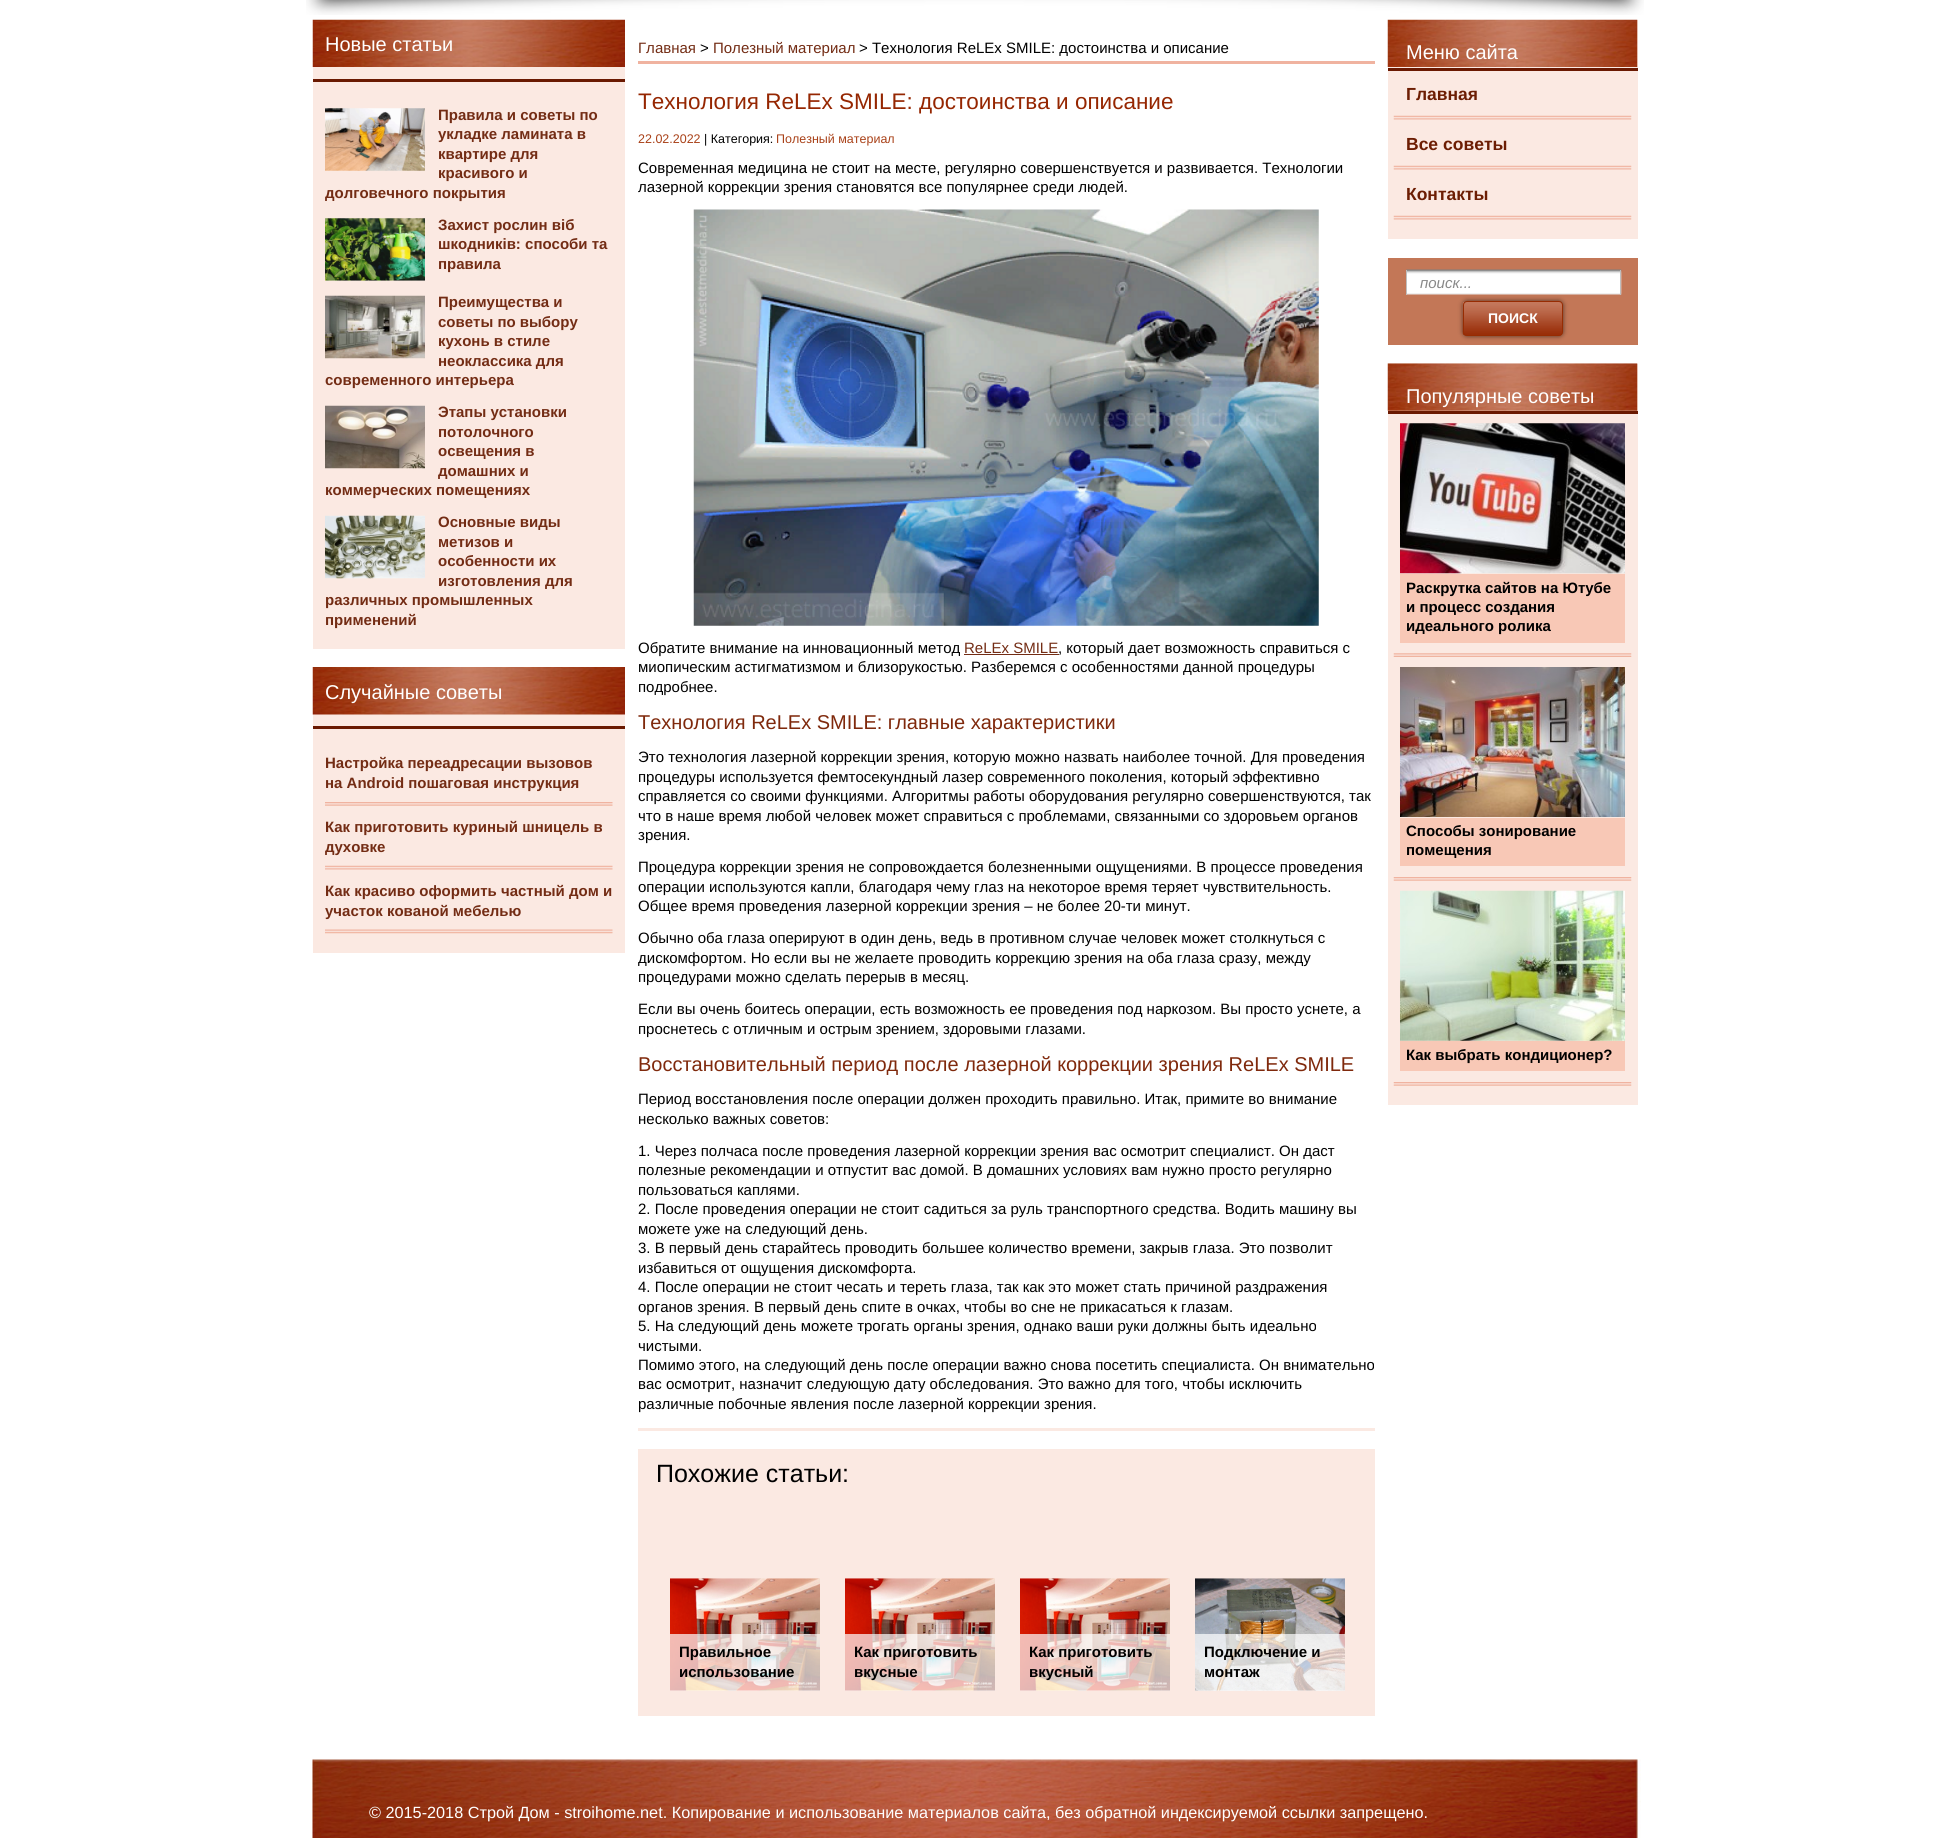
#include <cairo/cairo.h>
#include <math.h>
#include <stddef.h>

typedef struct { double x, y; const char *s; } line_t;
static cairo_t *cr;

static void rgb(unsigned color)
{
	cairo_set_source_rgb(cr, (color >> 16) / 255.0, (color >> 8 & 255) / 255.0, (color & 255) / 255.0);
}

static void rrect(double x, double y, double w, double h, double r)
{
	cairo_new_sub_path(cr);
	cairo_arc(cr, x + w - r, y + h - r, r, 0, M_PI / 2);
	cairo_arc(cr, x + r, y + h - r, r, M_PI / 2, M_PI);
	cairo_arc(cr, x + r, y + r, r, M_PI, 1.5 * M_PI);
	cairo_arc(cr, x + w - r, y + r, r, 1.5 * M_PI, 2 * M_PI);
	cairo_close_path(cr);
}

static void soft_shadow(double x, double y, double w, double h, double r, double blur, double alpha)
{
	cairo_push_group_with_content(cr, CAIRO_CONTENT_ALPHA);
	cairo_set_operator(cr, CAIRO_OPERATOR_SOURCE);
	for (int i = 15; i >= -15 && fmin(w, h) + blur * i / 3 > 0; i -= 2) {
		double e = blur * i / 6;
		cairo_set_source_rgba(cr, 0, 0, 0, alpha * erfc((i - 1) / 8.5) / 2);
		rrect(x - e, y - e, w + 2 * e, h + 2 * e, fmax(0, fmin(r + e + blur * .6, fmin(w, h) / 2 + e)));
		cairo_fill(cr);
	}
	cairo_pattern_t *soft = cairo_pop_group(cr);
	cairo_mask(cr, soft);
	cairo_pattern_destroy(soft);
}

static void image(const char *path, double x, double y, double w, double h)
{
	cairo_surface_t *image = cairo_image_surface_create_from_png(path);
	cairo_save(cr);
	cairo_set_source_surface(cr, image, x, y);
	cairo_rectangle(cr, x, y, w, h);
	cairo_fill(cr);
	cairo_restore(cr);
	cairo_surface_destroy(image);
}

int main(void) {
	cairo_surface_t *surface = cairo_image_surface_create(CAIRO_FORMAT_RGB24, 1950, 1838);
	cr = cairo_create(surface);
	cairo_font_options_t *options = cairo_font_options_create();
	cairo_font_options_set_hint_metrics(options, CAIRO_HINT_METRICS_OFF);
	cairo_font_options_set_hint_style(options, CAIRO_HINT_STYLE_NONE);
	cairo_set_font_options(cr, options);
	cairo_set_miter_limit(cr, 4);
	rgb(0xffffff);
	cairo_paint(cr);
	image("img/1.png", 306, 0, 1338, 15);
	rgb(0xfbe9e2);
	cairo_rectangle(cr, 313, 67, 312, 582);
	cairo_fill(cr);
	image("img/2.png", 312, 19, 313, 48);
	rgb(0x6a1901);
	cairo_rectangle(cr, 313, 79, 312, 3);
	cairo_fill(cr);
	image("img/3.png", 325, 108, 100, 63);
	image("img/4.png", 325, 218, 100, 63);
	image("img/5.png", 325, 295, 100, 64);
	image("img/6.png", 325, 405, 100, 64);
	image("img/7.png", 325, 515, 100, 64);
	rgb(0xfbe9e2);
	cairo_rectangle(cr, 313, 714, 312, 239);
	cairo_fill(cr);
	image("img/8.png", 312, 667, 313, 48);
	rgb(0x6a1901);
	cairo_rectangle(cr, 313, 726, 312, 3);
	cairo_fill(cr);
	image("img/9.png", 325, 802, 288, 4);
	image("img/10.png", 325, 865, 288, 5);
	image("img/11.png", 325, 929, 288, 5);
	rgb(0xf0b3a0);
	cairo_rectangle(cr, 638, 61, 737, 3);
	cairo_fill(cr);
	rgb(0xfbe9e2);
	cairo_rectangle(cr, 638, 1428, 737, 3);
	cairo_fill(cr);
	image("img/12.png", 693, 209, 626, 417);
	rgb(0x732c14);
	cairo_rectangle(cr, 964, 654, 95, 1);
	cairo_fill(cr);
	rgb(0xfbe9e2);
	cairo_rectangle(cr, 638, 1449, 737, 267);
	cairo_fill(cr);
	image("img/13.png", 670, 1578, 150, 113);
	cairo_set_source_rgba(cr, 1, 1, 1, 0.7);
	cairo_rectangle(cr, 670, 1634, 150, 57);
	cairo_fill(cr);
	image("img/14.png", 845, 1578, 150, 113);
	cairo_rectangle(cr, 845, 1634, 150, 57);
	cairo_fill(cr);
	image("img/15.png", 1020, 1578, 150, 113);
	cairo_rectangle(cr, 1020, 1634, 150, 57);
	cairo_fill(cr);
	image("img/16.png", 1195, 1578, 150, 113);
	cairo_rectangle(cr, 1195, 1634, 150, 57);
	cairo_fill(cr);
	rgb(0xfbe9e2);
	cairo_rectangle(cr, 1388, 20, 250, 219);
	cairo_fill(cr);
	image("img/17.png", 1387, 19, 251, 48);
	rgb(0x6a1901);
	cairo_rectangle(cr, 1388, 68, 250, 3);
	cairo_fill(cr);
	image("img/18.png", 1393, 115, 239, 5);
	image("img/18.png", 1393, 165, 239, 5);
	image("img/18.png", 1393, 215, 239, 5);
	rgb(0xc37757);
	cairo_rectangle(cr, 1388, 258, 250, 87);
	cairo_fill(cr);
	image("img/19.png", 1406, 269, 216, 26);
	rgb(0xbfbfbf);
	cairo_rectangle(cr, 1620, 270, 1, 25);
	cairo_fill(cr);
	cairo_rectangle(cr, 1406, 270, 1, 25);
	cairo_fill(cr);
	rgb(0x000000);
	soft_shadow(1463, 301, 100, 35, 4, 2.5, 0.6);
	image("img/20.png", 1462, 302, 101, 34);
	rrect(1463.5, 301.5, 99, 34, 3.5);
	rgb(0x972c02);
	cairo_set_line_width(cr, 1);
	cairo_stroke(cr);
	rgb(0xfbe9e2);
	cairo_rectangle(cr, 1388, 364, 250, 741);
	cairo_fill(cr);
	image("img/21.png", 1387, 363, 251, 48);
	rgb(0x6a1901);
	cairo_rectangle(cr, 1388, 411, 250, 3);
	cairo_fill(cr);
	image("img/22.png", 1393, 653, 239, 4);
	image("img/23.png", 1400, 423, 225, 151);
	rgb(0xf8c8b6);
	cairo_rectangle(cr, 1400, 574, 225, 69);
	cairo_fill(cr);
	image("img/24.png", 1393, 877, 239, 4);
	image("img/25.png", 1400, 667, 225, 150);
	cairo_rectangle(cr, 1400, 818, 225, 48);
	cairo_fill(cr);
	image("img/24.png", 1393, 1082, 239, 4);
	image("img/26.png", 1400, 890, 225, 151);
	cairo_rectangle(cr, 1400, 1041, 225, 30);
	cairo_fill(cr);
	image("img/27.png", 312, 1759, 1329, 79);
	cairo_select_font_face(cr, "Liberation Sans", CAIRO_FONT_SLANT_NORMAL, CAIRO_FONT_WEIGHT_NORMAL);
	cairo_set_font_size(cr, 20);
	rgb(0xffffff);
	cairo_move_to(cr, 325, 51);
	cairo_show_text(cr, "Новые статьи");
	cairo_select_font_face(cr, "Liberation Sans", CAIRO_FONT_SLANT_NORMAL, CAIRO_FONT_WEIGHT_BOLD);
	cairo_set_font_size(cr, 15);
	rgb(0x732c14);
	{
		static const line_t items[] = {
			{438, 120, "Правила и советы по"},
			{438, 139, "укладке ламината в"},
			{438, 159, "квартире для"},
			{438, 178, "красивого и"},
			{325, 198, "долговечного покрытия"},
			{438, 230, "Захист рослин віб"},
			{438, 249, "шкодників: способи та"},
			{438, 269, "правила"},
			{438, 307, "Преимущества и"},
			{438, 327, "советы по выбору"},
			{438, 346, "кухонь в стиле"},
			{438, 366, "неоклассика для"},
			{325, 385, "современного интерьера"},
			{438, 417, "Этапы установки"},
			{438, 437, "потолочного"},
			{438, 456, "освещения в"},
			{438, 476, "домашних и"},
			{325, 495, "коммерческих помещениях"},
			{438, 527, "Основные виды"},
			{438, 547, "метизов и"},
			{438, 566, "особенности их"},
			{438, 586, "изготовления для"},
			{325, 605, "различных промышленных"},
			{325, 625, "применений"},
		};
		for (size_t i = 0; i < sizeof items / sizeof *items; i++) {
			cairo_move_to(cr, items[i].x, items[i].y);
			cairo_show_text(cr, items[i].s);
		}
	}
	cairo_select_font_face(cr, "Liberation Sans", CAIRO_FONT_SLANT_NORMAL, CAIRO_FONT_WEIGHT_NORMAL);
	cairo_set_font_size(cr, 20);
	rgb(0xffffff);
	cairo_move_to(cr, 325, 699);
	cairo_show_text(cr, "Случайные советы");
	cairo_select_font_face(cr, "Liberation Sans", CAIRO_FONT_SLANT_NORMAL, CAIRO_FONT_WEIGHT_BOLD);
	cairo_set_font_size(cr, 15);
	rgb(0x732c14);
	{
		static const line_t items[] = {
			{325, 768, "Настройка переадресации вызовов"},
			{325, 788, "на Android пошаговая инструкция"},
			{325, 832, "Как приготовить куриный шницель в"},
			{325, 852, "духовке"},
			{325, 896, "Как красиво оформить частный дом и"},
			{325, 916, "участок кованой мебелью"},
		};
		for (size_t i = 0; i < sizeof items / sizeof *items; i++) {
			cairo_move_to(cr, items[i].x, items[i].y);
			cairo_show_text(cr, items[i].s);
		}
	}
	cairo_select_font_face(cr, "Liberation Sans", CAIRO_FONT_SLANT_NORMAL, CAIRO_FONT_WEIGHT_NORMAL);
	cairo_move_to(cr, 638, 53);
	cairo_show_text(cr, "Главная");
	rgb(0x000000);
	cairo_move_to(cr, 700, 53);
	cairo_show_text(cr, ">");
	rgb(0x732c14);
	cairo_move_to(cr, 713, 53);
	cairo_show_text(cr, "Полезный материал");
	rgb(0x000000);
	cairo_move_to(cr, 859, 53);
	cairo_show_text(cr, "> Технология ReLEx SMILE: достоинства и описание");
	cairo_set_font_size(cr, 22.5);
	rgb(0x952601);
	cairo_move_to(cr, 638, 109);
	cairo_show_text(cr, "Технология ReLEx SMILE: достоинства и описание");
	cairo_set_font_size(cr, 12.5);
	rgb(0xa94118);
	cairo_move_to(cr, 638, 143);
	cairo_show_text(cr, "22.02.2022");
	rgb(0x000000);
	cairo_move_to(cr, 704, 143);
	cairo_show_text(cr, "| Категория:");
	rgb(0xa94118);
	cairo_move_to(cr, 776, 143);
	cairo_show_text(cr, "Полезный материал");
	cairo_set_font_size(cr, 15);
	rgb(0x000000);
	{
		static const line_t items[] = {
			{638, 173, "Современная медицина не стоит на месте, регулярно совершенствуется и развивается. Технологии"},
			{638, 192, "лазерной коррекции зрения становятся все популярнее среди людей."},
			{638, 653, "Обратите внимание на инновационный метод"},
		};
		for (size_t i = 0; i < sizeof items / sizeof *items; i++) {
			cairo_move_to(cr, items[i].x, items[i].y);
			cairo_show_text(cr, items[i].s);
		}
	}
	rgb(0x732c14);
	cairo_move_to(cr, 964, 653);
	cairo_show_text(cr, "ReLEx SMILE");
	rgb(0x000000);
	{
		static const line_t items[] = {
			{1058, 653, ", который дает возможность справиться с"},
			{638, 672, "миопическим астигматизмом и близорукостью. Разберемся с особенностями данной процедуры"},
			{638, 692, "подробнее."},
		};
		for (size_t i = 0; i < sizeof items / sizeof *items; i++) {
			cairo_move_to(cr, items[i].x, items[i].y);
			cairo_show_text(cr, items[i].s);
		}
	}
	cairo_set_font_size(cr, 20);
	rgb(0x7f290c);
	cairo_move_to(cr, 638, 729);
	cairo_show_text(cr, "Технология ReLEx SMILE: главные характеристики");
	cairo_set_font_size(cr, 15);
	rgb(0x000000);
	{
		static const line_t items[] = {
			{638, 762, "Это технология лазерной коррекции зрения, которую можно назвать наиболее точной. Для проведения"},
			{638, 782, "процедуры используется фемтосекундный лазер современного поколения, который эффективно"},
			{638, 801, "справляется со своими функциями. Алгоритмы работы оборудования регулярно совершенствуются, так"},
			{638, 821, "что в наше время любой человек может справиться с проблемами, связанными со здоровьем органов"},
			{638, 840, "зрения."},
			{638, 872, "Процедура коррекции зрения не сопровождается болезненными ощущениями. В процессе проведения"},
			{638, 892, "операции используются капли, благодаря чему глаз на некоторое время теряет чувствительность."},
			{638, 911, "Общее время проведения лазерной коррекции зрения – не более 20-ти минут."},
			{638, 943, "Обычно оба глаза оперируют в один день, ведь в противном случае человек может столкнуться с"},
		};
		for (size_t i = 0; i < sizeof items / sizeof *items; i++) {
			cairo_move_to(cr, items[i].x, items[i].y);
			cairo_show_text(cr, items[i].s);
		}
	}
	cairo_save(cr);
	cairo_rectangle(cr, 638, 89, 737, 1339);
	cairo_clip(cr);
	cairo_move_to(cr, 638, 963);
	cairo_show_text(cr, "дискомфортом. Но если вы не желаете проводить коррекцию зрения на оба глаза сразу, между");
	cairo_restore(cr);
	{
		static const line_t items[] = {
			{638, 982, "процедурами можно сделать перерыв в месяц."},
			{638, 1014, "Если вы очень боитесь операции, есть возможность ее проведения под наркозом. Вы просто уснете, а"},
			{638, 1034, "проснетесь с отличным и острым зрением, здоровыми глазами."},
		};
		for (size_t i = 0; i < sizeof items / sizeof *items; i++) {
			cairo_move_to(cr, items[i].x, items[i].y);
			cairo_show_text(cr, items[i].s);
		}
	}
	cairo_set_font_size(cr, 20);
	rgb(0x7f290c);
	cairo_move_to(cr, 638, 1071);
	cairo_show_text(cr, "Восстановительный период после лазерной коррекции зрения ReLEx SMILE");
	cairo_set_font_size(cr, 15);
	rgb(0x000000);
	{
		static const line_t items[] = {
			{638, 1104, "Период восстановления после операции должен проходить правильно. Итак, примите во внимание"},
			{638, 1124, "несколько важных советов:"},
			{638, 1156, "1. Через полчаса после проведения лазерной коррекции зрения вас осмотрит специалист. Он даст"},
			{638, 1175, "полезные рекомендации и отпустит вас домой. В домашних условиях вам нужно просто регулярно"},
			{638, 1195, "пользоваться каплями."},
			{638, 1214, "2. После проведения операции не стоит садиться за руль транспортного средства. Водить машину вы"},
			{638, 1234, "можете уже на следующий день."},
			{638, 1253, "3. В первый день старайтесь проводить большее количество времени, закрыв глаза. Это позволит"},
			{638, 1273, "избавиться от ощущения дискомфорта."},
			{638, 1292, "4. После операции не стоит чесать и тереть глаза, так как это может стать причиной раздражения"},
			{638, 1312, "органов зрения. В первый день спите в очках, чтобы во сне не прикасаться к глазам."},
			{638, 1331, "5. На следующий день можете трогать органы зрения, однако ваши руки должны быть идеально"},
			{638, 1351, "чистыми."},
			{638, 1370, "Помимо этого, на следующий день после операции важно снова посетить специалиста. Он внимательно"},
			{638, 1389, "вас осмотрит, назначит следующую дату обследования. Это важно для того, чтобы исключить"},
			{638, 1409, "различные побочные явления после лазерной коррекции зрения."},
		};
		for (size_t i = 0; i < sizeof items / sizeof *items; i++) {
			cairo_move_to(cr, items[i].x, items[i].y);
			cairo_show_text(cr, items[i].s);
		}
	}
	cairo_set_font_size(cr, 25);
	cairo_move_to(cr, 656, 1482);
	cairo_show_text(cr, "Похожие статьи:");
	cairo_select_font_face(cr, "Liberation Sans", CAIRO_FONT_SLANT_NORMAL, CAIRO_FONT_WEIGHT_BOLD);
	cairo_set_font_size(cr, 15);
	{
		static const line_t items[] = {
			{679, 1657, "Правильное"},
			{679, 1677, "использование"},
			{854, 1657, "Как приготовить"},
			{854, 1677, "вкусные"},
			{1029, 1657, "Как приготовить"},
			{1029, 1677, "вкусный"},
			{1204, 1657, "Подключение и"},
			{1204, 1677, "монтаж"},
		};
		for (size_t i = 0; i < sizeof items / sizeof *items; i++) {
			cairo_move_to(cr, items[i].x, items[i].y);
			cairo_show_text(cr, items[i].s);
		}
	}
	cairo_select_font_face(cr, "Liberation Sans", CAIRO_FONT_SLANT_NORMAL, CAIRO_FONT_WEIGHT_NORMAL);
	cairo_set_font_size(cr, 20);
	rgb(0xffffff);
	cairo_move_to(cr, 1406, 59);
	cairo_show_text(cr, "Меню сайта");
	cairo_select_font_face(cr, "Liberation Sans", CAIRO_FONT_SLANT_NORMAL, CAIRO_FONT_WEIGHT_BOLD);
	cairo_set_font_size(cr, 17.5);
	rgb(0x6c1d03);
	{
		static const line_t items[] = {
			{1406, 100, "Главная"},
			{1406, 150, "Все советы"},
			{1406, 200, "Контакты"},
		};
		for (size_t i = 0; i < sizeof items / sizeof *items; i++) {
			cairo_move_to(cr, items[i].x, items[i].y);
			cairo_show_text(cr, items[i].s);
		}
	}
	cairo_select_font_face(cr, "Liberation Sans", CAIRO_FONT_SLANT_ITALIC, CAIRO_FONT_WEIGHT_NORMAL);
	cairo_set_font_size(cr, 15);
	rgb(0x888888);
	cairo_move_to(cr, 1420, 288);
	cairo_show_text(cr, "поиск...");
	cairo_select_font_face(cr, "Liberation Sans", CAIRO_FONT_SLANT_NORMAL, CAIRO_FONT_WEIGHT_BOLD);
	cairo_set_font_size(cr, 14);
	rgb(0xffffff);
	cairo_move_to(cr, 1488, 323);
	cairo_show_text(cr, "ПОИСК");
	cairo_select_font_face(cr, "Liberation Sans", CAIRO_FONT_SLANT_NORMAL, CAIRO_FONT_WEIGHT_NORMAL);
	cairo_set_font_size(cr, 20);
	cairo_move_to(cr, 1406, 403);
	cairo_show_text(cr, "Популярные советы");
	cairo_select_font_face(cr, "Liberation Sans", CAIRO_FONT_SLANT_NORMAL, CAIRO_FONT_WEIGHT_BOLD);
	cairo_set_font_size(cr, 15);
	rgb(0x000000);
	{
		static const line_t items[] = {
			{1406, 593, "Раскрутка сайтов на Ютубе"},
			{1406, 612, "и процесс создания"},
			{1406, 631, "идеального ролика"},
			{1406, 836, "Способы зонирование"},
			{1406, 855, "помещения"},
			{1406, 1060, "Как выбрать кондиционер?"},
		};
		for (size_t i = 0; i < sizeof items / sizeof *items; i++) {
			cairo_move_to(cr, items[i].x, items[i].y);
			cairo_show_text(cr, items[i].s);
		}
	}
	cairo_select_font_face(cr, "Liberation Sans", CAIRO_FONT_SLANT_NORMAL, CAIRO_FONT_WEIGHT_NORMAL);
	cairo_set_font_size(cr, 16.25);
	rgb(0xffffff);
	cairo_move_to(cr, 369, 1818);
	cairo_show_text(cr, "© 2015-2018 Строй Дом - stroihome.net. Копирование и использование материалов сайта, без обратной индексируемой ссылки запрещено.");
	cairo_surface_write_to_png(surface, "page.png");
	cairo_font_options_destroy(options);
	cairo_destroy(cr);
	cairo_surface_destroy(surface);
	return 0;
}
